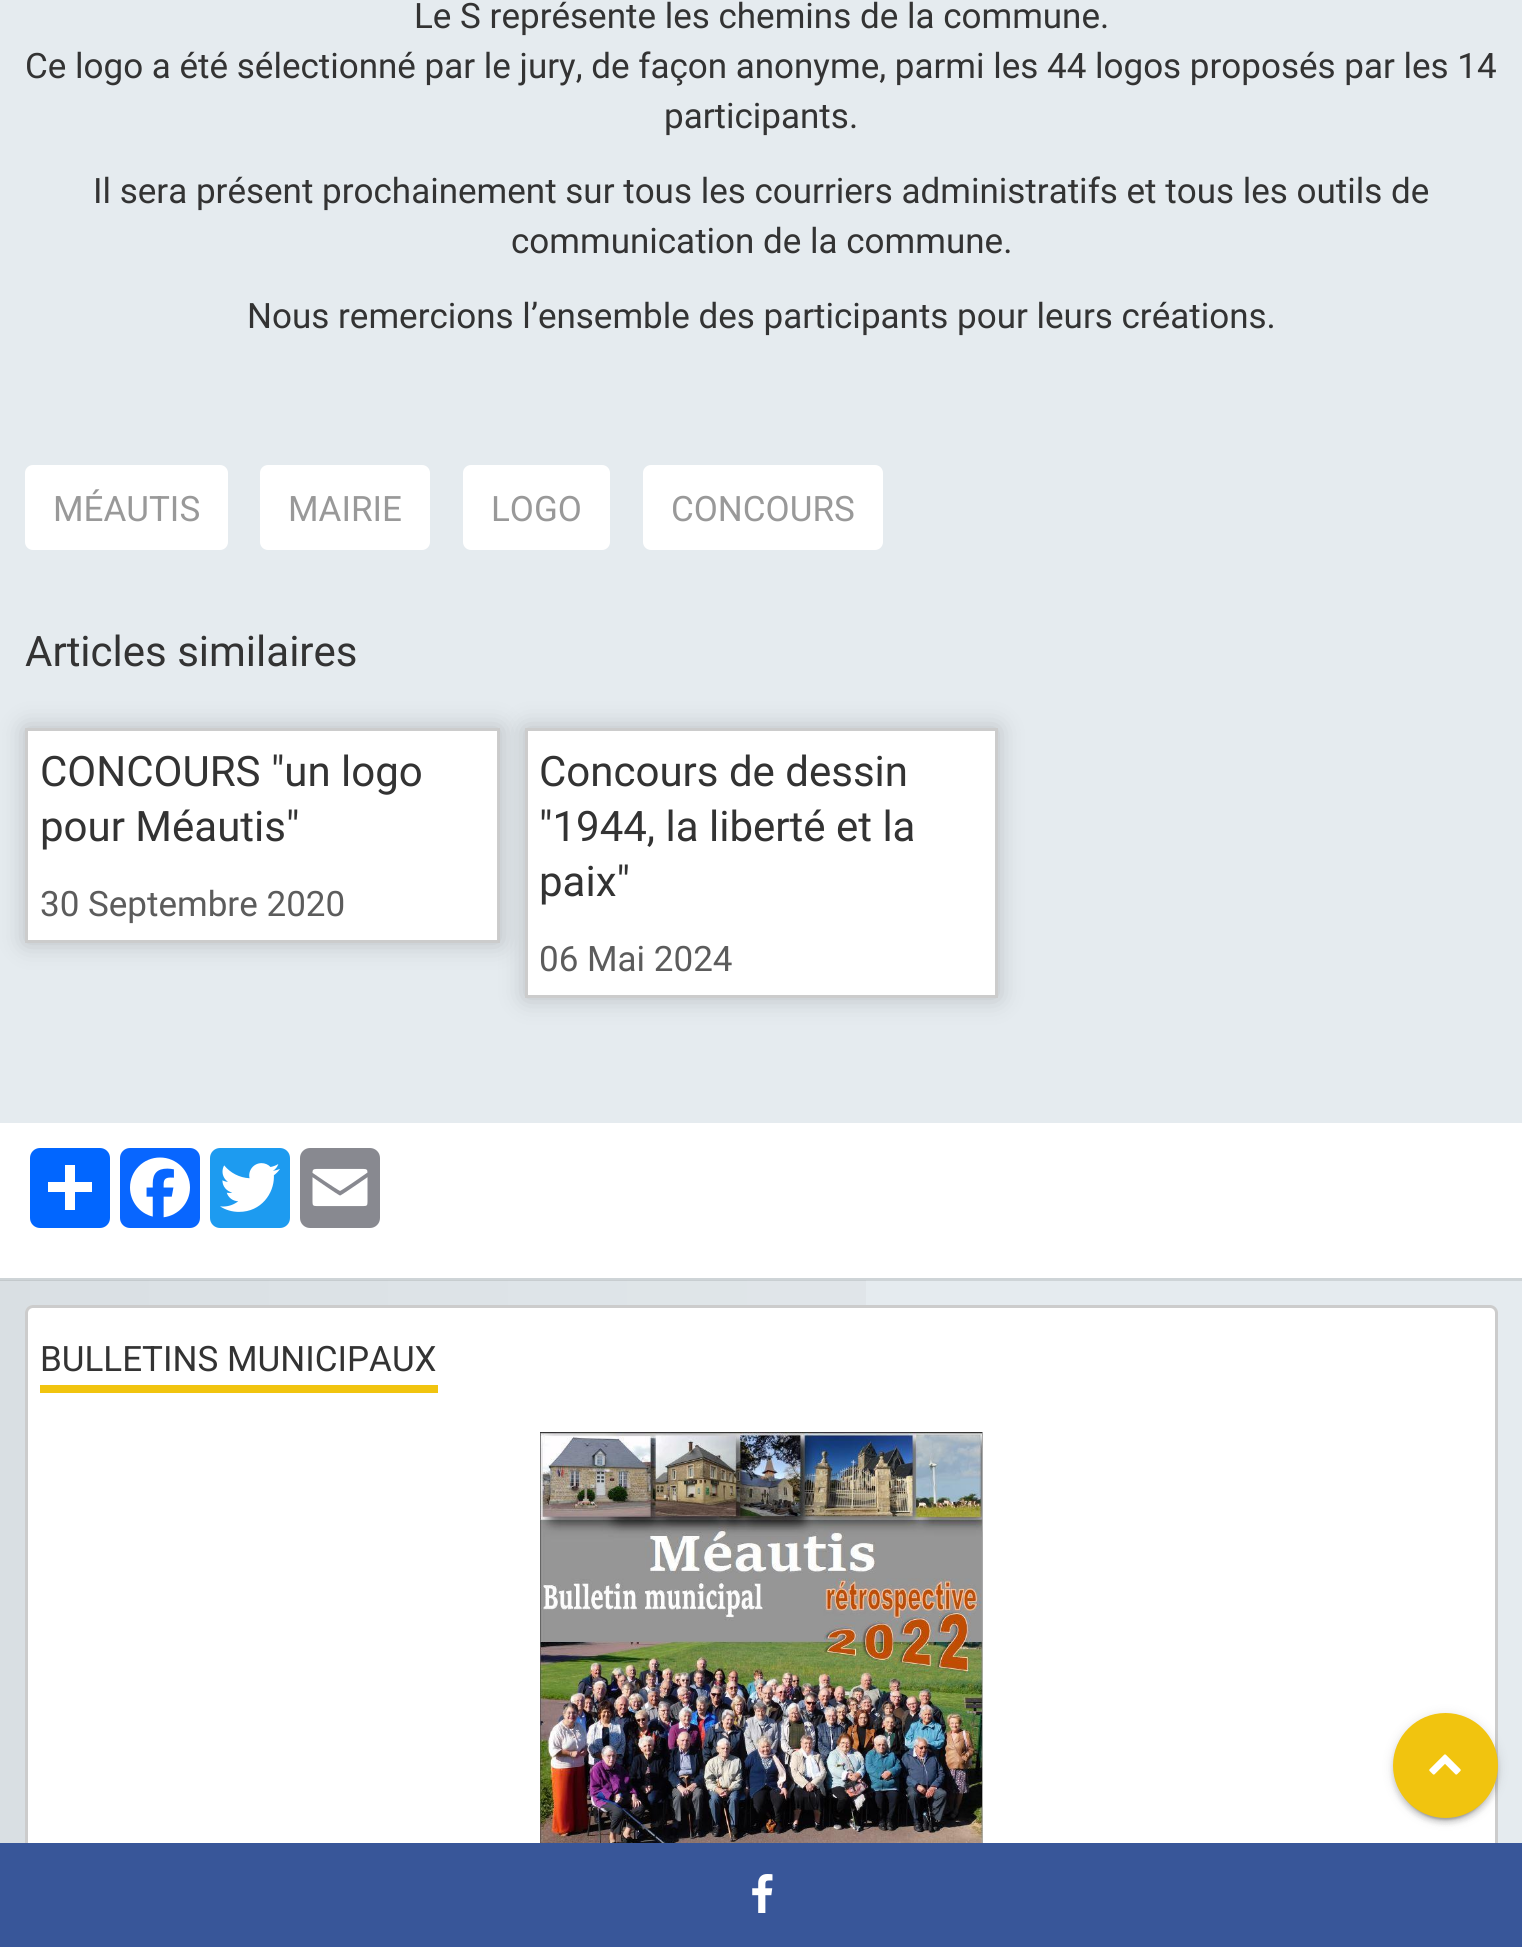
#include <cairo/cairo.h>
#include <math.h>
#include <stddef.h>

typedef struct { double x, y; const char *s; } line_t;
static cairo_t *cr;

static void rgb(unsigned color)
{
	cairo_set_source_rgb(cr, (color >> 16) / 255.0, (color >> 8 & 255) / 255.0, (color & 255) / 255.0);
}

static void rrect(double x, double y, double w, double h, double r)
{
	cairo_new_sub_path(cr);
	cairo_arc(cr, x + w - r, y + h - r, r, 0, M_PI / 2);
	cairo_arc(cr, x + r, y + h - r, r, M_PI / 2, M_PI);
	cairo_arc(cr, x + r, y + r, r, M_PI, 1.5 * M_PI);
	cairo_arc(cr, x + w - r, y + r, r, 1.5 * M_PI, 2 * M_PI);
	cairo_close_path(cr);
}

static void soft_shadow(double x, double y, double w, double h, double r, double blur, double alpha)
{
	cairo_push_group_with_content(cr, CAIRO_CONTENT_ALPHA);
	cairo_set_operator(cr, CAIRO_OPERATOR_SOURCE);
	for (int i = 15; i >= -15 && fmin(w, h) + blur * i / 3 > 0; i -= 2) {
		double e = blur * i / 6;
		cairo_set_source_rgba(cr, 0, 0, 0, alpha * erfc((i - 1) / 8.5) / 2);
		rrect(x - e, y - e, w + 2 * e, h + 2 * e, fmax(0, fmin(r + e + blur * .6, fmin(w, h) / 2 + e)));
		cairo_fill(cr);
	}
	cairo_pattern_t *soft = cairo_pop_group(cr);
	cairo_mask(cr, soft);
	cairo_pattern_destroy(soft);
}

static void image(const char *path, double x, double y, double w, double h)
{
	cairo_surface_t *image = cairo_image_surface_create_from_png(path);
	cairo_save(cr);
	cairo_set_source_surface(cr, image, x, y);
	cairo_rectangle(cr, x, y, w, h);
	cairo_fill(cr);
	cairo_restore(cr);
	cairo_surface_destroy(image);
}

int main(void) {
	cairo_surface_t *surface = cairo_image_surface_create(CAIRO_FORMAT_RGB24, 1522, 1947);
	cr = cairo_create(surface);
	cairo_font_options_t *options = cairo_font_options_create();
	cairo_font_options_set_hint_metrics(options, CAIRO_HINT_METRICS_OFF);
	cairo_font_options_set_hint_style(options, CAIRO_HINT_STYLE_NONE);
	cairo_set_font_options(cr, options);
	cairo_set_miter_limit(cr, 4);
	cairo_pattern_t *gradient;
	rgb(0xe5ebef);
	cairo_paint(cr);
	rgb(0xffffff);
	rrect(25, 465, 203, 85, 8);
	cairo_fill(cr);
	rrect(260, 465, 170, 85, 8);
	cairo_fill(cr);
	rrect(463, 465, 147, 85, 8);
	cairo_fill(cr);
	rrect(643, 465, 240, 85, 8);
	cairo_fill(cr);
	rgb(0x000000);
	soft_shadow(25, 728, 475, 215, 0, 12.5, 0.2);
	rgb(0xffffff);
	cairo_rectangle(cr, 26.5, 729.5, 472, 212);
	cairo_fill_preserve(cr);
	rgb(0xcccccc);
	cairo_set_line_width(cr, 3);
	cairo_stroke(cr);
	rgb(0x000000);
	soft_shadow(525, 728, 473, 270, 0, 12.5, 0.2);
	rgb(0xffffff);
	cairo_rectangle(cr, 526.5, 729.5, 470, 267);
	cairo_fill_preserve(cr);
	rgb(0xcccccc);
	cairo_stroke(cr);
	rgb(0xffffff);
	cairo_rectangle(cr, 0, 1123, 1522, 155);
	cairo_fill(cr);
	rgb(0x0166ff);
	rrect(30, 1148, 80, 80, 10);
	cairo_fill(cr);
	rgb(0xffffff);
	cairo_rectangle(cr, 65, 1165, 10, 45);
	cairo_fill(cr);
	cairo_rectangle(cr, 48, 1182, 44, 10);
	cairo_fill(cr);
	rgb(0x0866ff);
	rrect(120, 1148, 80, 80, 10);
	cairo_fill(cr);
	image("img/1.png", 130, 1157, 60, 61);
	rgb(0x1d9bf0);
	rrect(210, 1148, 80, 80, 10);
	cairo_fill(cr);
	image("img/2.png", 220, 1163, 60, 49);
	rgb(0x888990);
	rrect(300, 1148, 80, 80, 10);
	cairo_fill(cr);
	image("img/3.png", 312, 1168, 56, 39);
	rgb(0xced4d7);
	cairo_rectangle(cr, 0, 1278, 1522, 3);
	cairo_fill(cr);
	gradient = cairo_pattern_create_linear(0, 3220, 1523, 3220);
	cairo_pattern_add_color_stop_rgba(gradient, 0, 0, 0, 0, 0.05);
	cairo_pattern_add_color_stop_rgba(gradient, 1, 0, 0, 0, 0);
	cairo_set_source(cr, gradient);
	cairo_pattern_destroy(gradient);
	cairo_rectangle(cr, 0, 1280, 866, 563);
	cairo_fill(cr);
	rgb(0xffffff);
	rrect(25, 1305, 1473, 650, 8);
	cairo_fill(cr);
	rrect(26.5, 1306.5, 1470, 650, 6.5);
	cairo_set_source_rgba(cr, 0, 0, 0, 0.2);
	cairo_stroke(cr);
	rgb(0xf1c40f);
	cairo_rectangle(cr, 40, 1385, 398, 8);
	cairo_fill(cr);
	image("img/4.png", 540, 1432, 443, 411);
	rgb(0x000000);
	soft_shadow(1393, 1715, 105, 105, 52.5, 6, 0.12);
	soft_shadow(1398, 1725, 95, 95, 47.5, 1, 0.2);
	soft_shadow(1393, 1718, 105, 105, 52.5, 2.5, 0.14);
	rgb(0xf1c40f);
	cairo_arc(cr, 1445.5, 1765.5, 52.5, 0, 2 * M_PI);
	cairo_fill(cr);
	image("img/5.png", 1429, 1754, 32, 21);
	rgb(0x385699);
	cairo_rectangle(cr, 0, 1843, 1522, 104);
	cairo_fill(cr);
	image("img/6.png", 752, 1874, 21, 39);
	cairo_select_font_face(cr, "Roboto", CAIRO_FONT_SLANT_NORMAL, CAIRO_FONT_WEIGHT_NORMAL);
	cairo_set_font_size(cr, 35);
	rgb(0x333333);
	{
		static const line_t items[] = {
			{414, 28, "Le S représente les chemins de la commune."},
			{25, 78, "Ce logo a été sélectionné par le jury, de façon anonyme, parmi les 44 logos proposés par les 14"},
			{664, 128, "participants."},
			{93, 203, "Il sera présent prochainement sur tous les courriers administratifs et tous les outils de"},
			{511, 253, "communication de la commune."},
			{247, 328, "Nous remercions l’ensemble des participants pour leurs créations."},
		};
		for (size_t i = 0; i < sizeof items / sizeof *items; i++) {
			cairo_move_to(cr, items[i].x, items[i].y);
			cairo_show_text(cr, items[i].s);
		}
	}
	rgb(0x999999);
	{
		static const line_t items[] = {
			{53, 521, "MÉAUTIS"},
			{288, 521, "MAIRIE"},
			{491, 521, "LOGO"},
			{671, 521, "CONCOURS"},
		};
		for (size_t i = 0; i < sizeof items / sizeof *items; i++) {
			cairo_move_to(cr, items[i].x, items[i].y);
			cairo_show_text(cr, items[i].s);
		}
	}
	cairo_set_font_size(cr, 42);
	rgb(0x333333);
	{
		static const line_t items[] = {
			{25, 666, "Articles similaires"},
			{40, 786, "CONCOURS \"un logo"},
			{40, 841, "pour Méautis\""},
		};
		for (size_t i = 0; i < sizeof items / sizeof *items; i++) {
			cairo_move_to(cr, items[i].x, items[i].y);
			cairo_show_text(cr, items[i].s);
		}
	}
	cairo_set_font_size(cr, 35);
	rgb(0x5c5c5c);
	cairo_move_to(cr, 40, 916);
	cairo_show_text(cr, "30 Septembre 2020");
	cairo_set_font_size(cr, 42);
	rgb(0x333333);
	{
		static const line_t items[] = {
			{539, 786, "Concours de dessin"},
			{539, 841, "\"1944, la liberté et la"},
			{539, 896, "paix\""},
		};
		for (size_t i = 0; i < sizeof items / sizeof *items; i++) {
			cairo_move_to(cr, items[i].x, items[i].y);
			cairo_show_text(cr, items[i].s);
		}
	}
	cairo_set_font_size(cr, 35);
	rgb(0x5c5c5c);
	cairo_move_to(cr, 539, 971);
	cairo_show_text(cr, "06 Mai 2024");
	rgb(0x333333);
	cairo_move_to(cr, 40, 1371);
	cairo_show_text(cr, "BULLETINS MUNICIPAUX");
	cairo_surface_write_to_png(surface, "page.png");
	cairo_font_options_destroy(options);
	cairo_destroy(cr);
	cairo_surface_destroy(surface);
	return 0;
}
